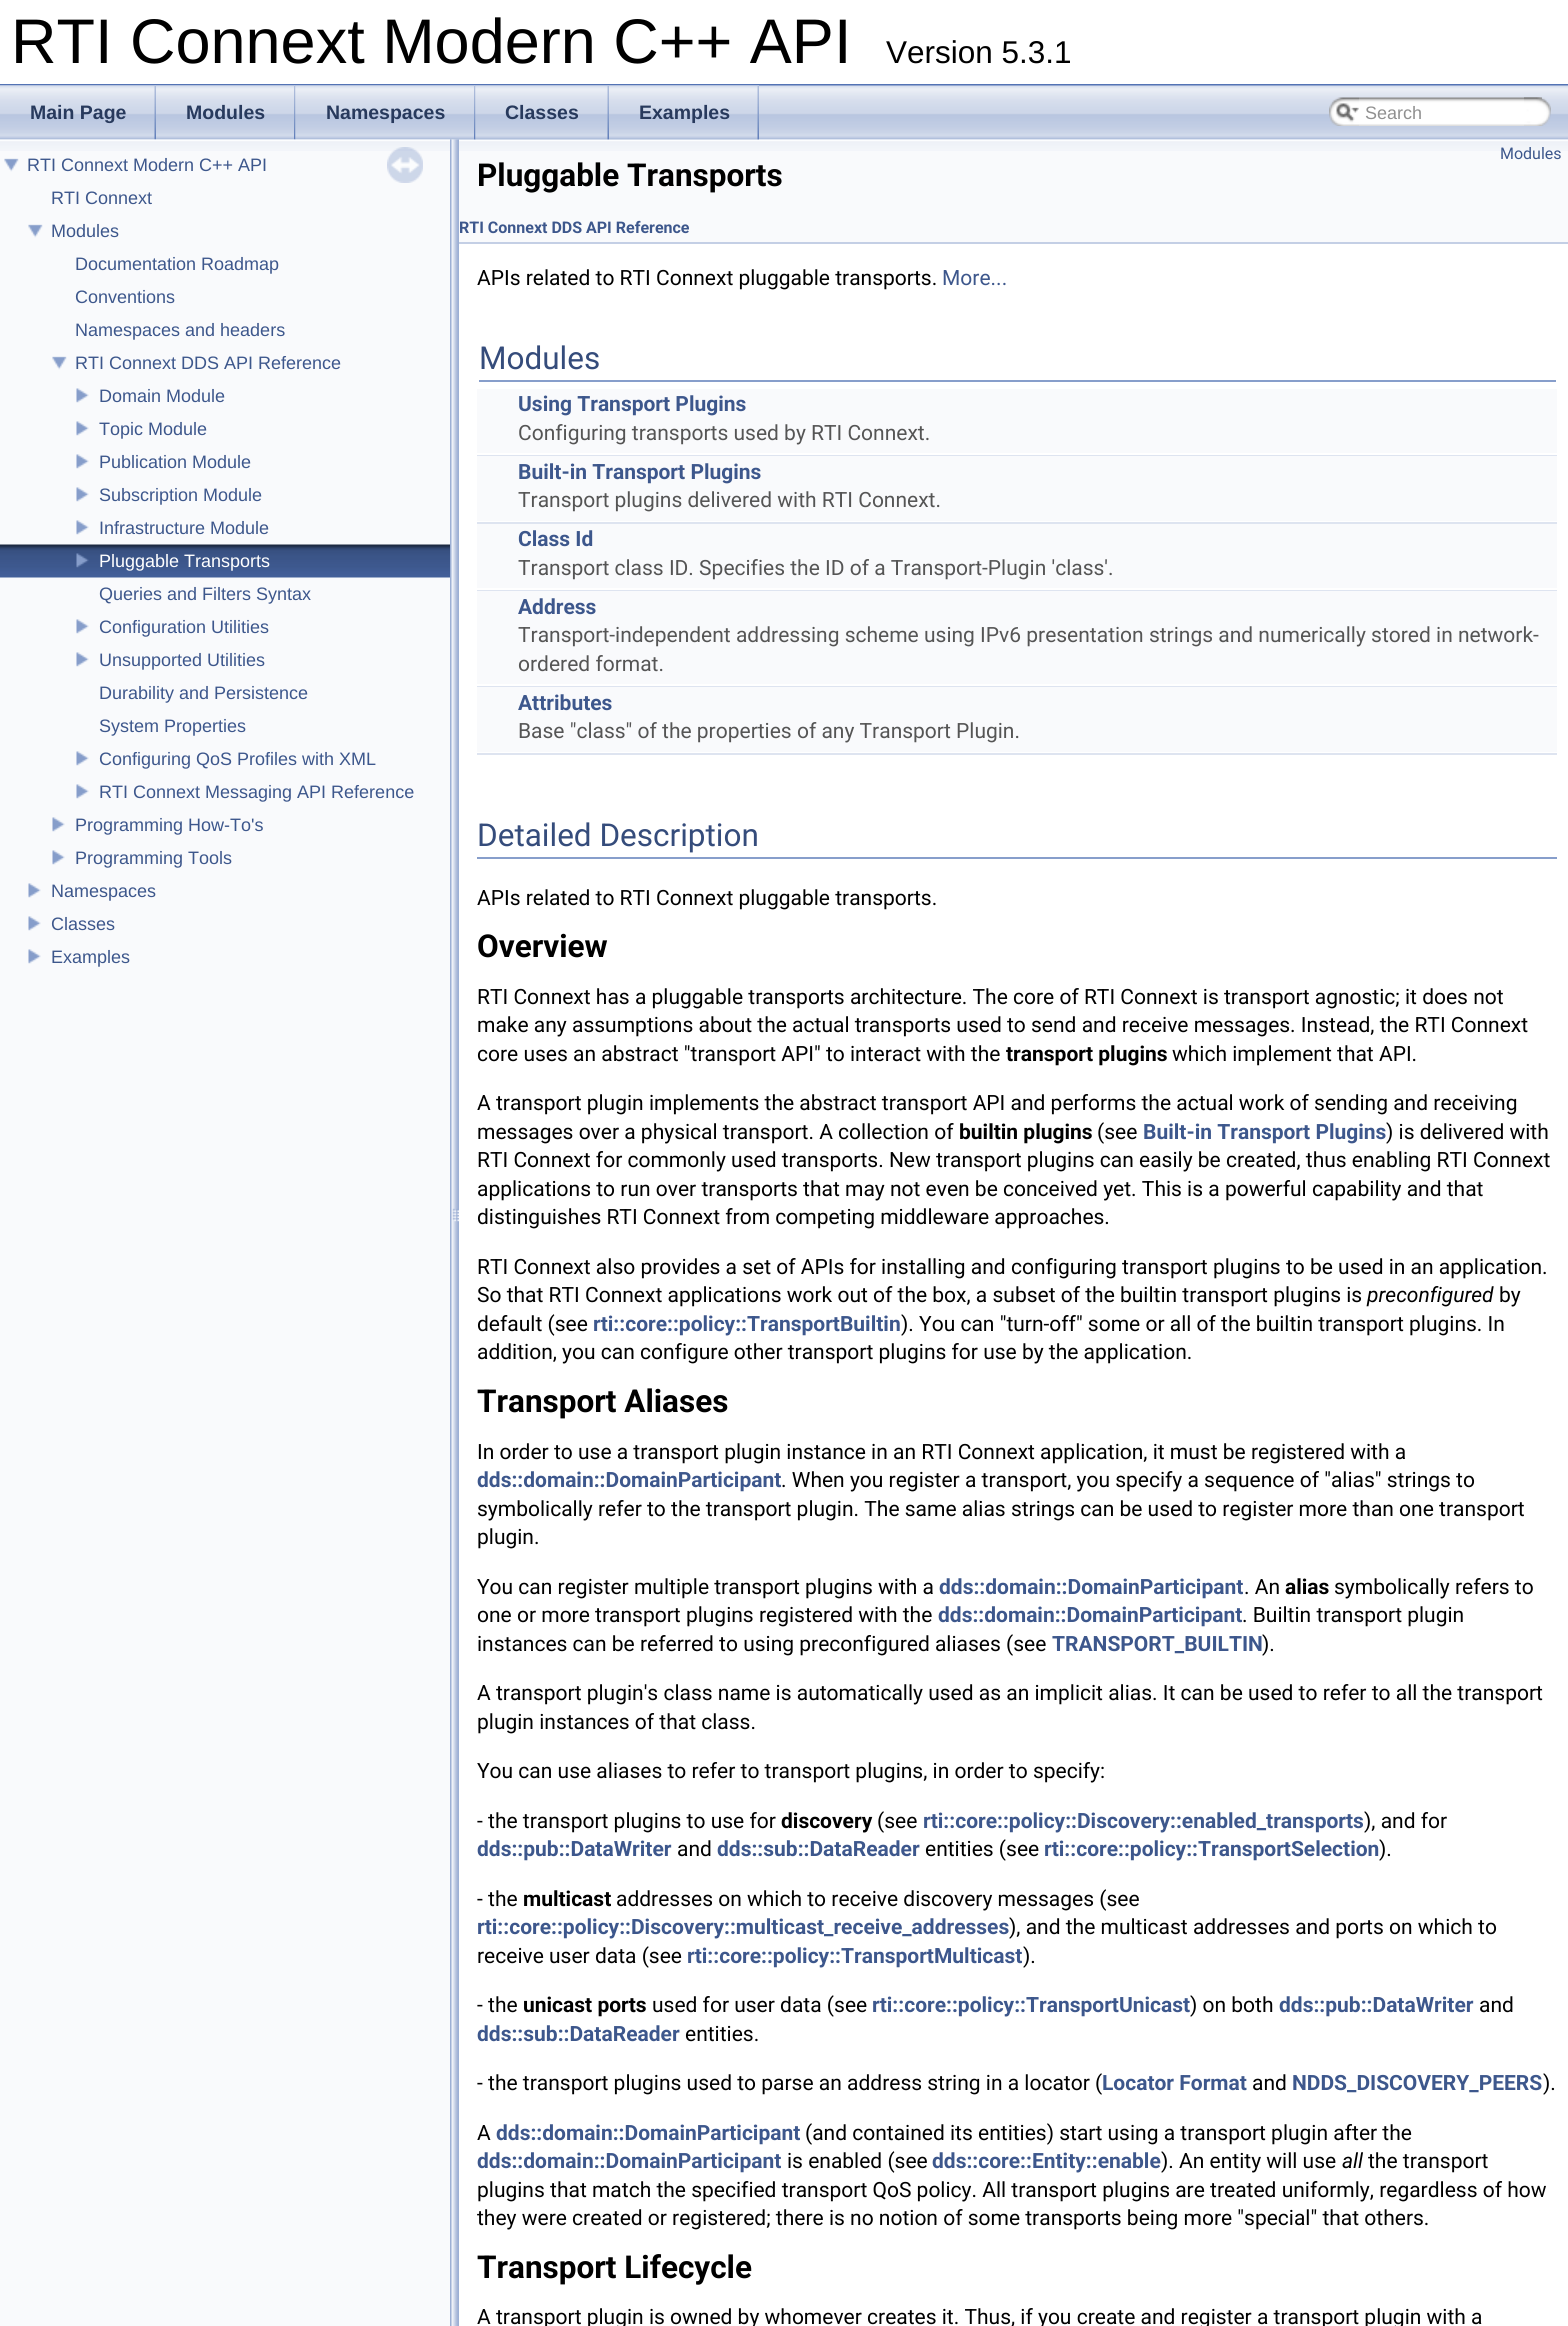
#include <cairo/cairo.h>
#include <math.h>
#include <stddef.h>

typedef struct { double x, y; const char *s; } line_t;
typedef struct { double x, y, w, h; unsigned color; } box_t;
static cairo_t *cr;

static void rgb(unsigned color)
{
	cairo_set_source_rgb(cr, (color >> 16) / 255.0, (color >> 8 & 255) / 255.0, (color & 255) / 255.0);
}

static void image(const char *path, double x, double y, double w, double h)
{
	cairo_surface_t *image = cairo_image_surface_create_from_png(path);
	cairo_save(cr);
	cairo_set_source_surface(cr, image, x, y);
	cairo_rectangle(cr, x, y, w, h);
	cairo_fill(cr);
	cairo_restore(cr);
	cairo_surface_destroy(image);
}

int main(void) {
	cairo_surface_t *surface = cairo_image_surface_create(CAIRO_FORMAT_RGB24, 1568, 2326);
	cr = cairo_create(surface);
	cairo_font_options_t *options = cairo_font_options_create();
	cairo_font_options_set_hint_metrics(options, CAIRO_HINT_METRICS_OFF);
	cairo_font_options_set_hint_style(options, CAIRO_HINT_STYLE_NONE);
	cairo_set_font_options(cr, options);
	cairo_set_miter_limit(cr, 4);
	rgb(0xffffff);
	cairo_paint(cr);
	rgb(0x5373b4);
	cairo_rectangle(cr, 0, 84, 1568, 2);
	cairo_fill(cr);
	image("img/1.png", 0, 85, 1568, 55);
	image("img/2.png", 0, 85, 156, 55);
	image("img/3.png", 154, 86, 2, 54);
	image("img/4.png", 156, 85, 140, 55);
	image("img/5.png", 294, 86, 2, 54);
	image("img/6.png", 295, 85, 181, 55);
	image("img/5.png", 474, 86, 2, 54);
	image("img/7.png", 475, 85, 134, 55);
	image("img/3.png", 607, 86, 2, 54);
	image("img/8.png", 609, 85, 150, 55);
	image("img/3.png", 757, 86, 2, 54);
	image("img/9.png", 1329, 97, 30, 29);
	image("img/10.png", 1336, 103, 23, 19);
	image("img/11.png", 1359, 97, 183, 29);
	image("img/12.png", 1524, 97, 27, 29);
	rgb(0xf9fafc);
	cairo_rectangle(cr, 0, 151, 450, 2175);
	cairo_fill(cr);
	image("img/13.png", 0, 139, 450, 12);
	image("img/14.png", 387, 147, 36, 36);
	image("img/15.png", 4, 158, 15, 14);
	image("img/15.png", 28, 224, 15, 14);
	image("img/15.png", 52, 356, 15, 14);
	image("img/16.png", 76, 388, 13, 15);
	image("img/16.png", 76, 421, 13, 15);
	image("img/16.png", 76, 454, 13, 15);
	image("img/16.png", 76, 487, 13, 15);
	image("img/16.png", 76, 520, 13, 15);
	image("img/17.png", 0, 544, 450, 34);
	image("img/18.png", 76, 553, 13, 15);
	image("img/16.png", 76, 619, 13, 15);
	image("img/16.png", 76, 652, 13, 15);
	image("img/16.png", 76, 751, 13, 15);
	image("img/16.png", 76, 784, 13, 15);
	image("img/16.png", 52, 817, 13, 15);
	image("img/16.png", 52, 850, 13, 15);
	image("img/16.png", 28, 883, 13, 15);
	image("img/16.png", 28, 916, 13, 15);
	image("img/16.png", 28, 949, 13, 15);
	image("img/19.png", 450, 139, 9, 2187);
	cairo_rectangle(cr, 459, 151, 1109, 91);
	cairo_fill(cr);
	image("img/20.png", 459, 139, 1109, 12);
	{
		static const box_t items[] = {
			{459, 242, 1109, 2, 0xc4cfe5},
			{479, 380, 1077, 2, 0x879ecb},
			{477, 389, 1080, 30, 0xf9fafc},
			{477, 419, 1080, 34, 0xf9fafc},
			{477, 455, 1080, 1, 0xdee4f0},
			{477, 456, 1080, 30, 0xf9fafc},
			{477, 486, 1080, 35, 0xf9fafc},
			{477, 522, 1080, 2, 0xdee4f0},
			{477, 524, 1080, 30, 0xf9fafc},
			{477, 554, 1080, 34, 0xf9fafc},
			{477, 590, 1080, 1, 0xdee4f0},
			{477, 591, 1080, 30, 0xf9fafc},
			{477, 621, 1080, 63, 0xf9fafc},
			{477, 686, 1080, 1, 0xdee4f0},
			{477, 687, 1080, 30, 0xf9fafc},
			{477, 717, 1080, 35, 0xf9fafc},
			{477, 753, 1080, 2, 0xdee4f0},
			{477, 857, 1080, 2, 0x879ecb},
		};
		for (size_t i = 0; i < sizeof items / sizeof *items; i++) {
			rgb(items[i].color);
			cairo_rectangle(cr, items[i].x, items[i].y, items[i].w, items[i].h);
			cairo_fill(cr);
		}
	}
	cairo_select_font_face(cr, "Liberation Sans", CAIRO_FONT_SLANT_NORMAL, CAIRO_FONT_WEIGHT_NORMAL);
	cairo_set_font_size(cr, 63);
	rgb(0x000000);
	cairo_move_to(cr, 11, 63);
	cairo_show_text(cr, "RTI Connext Modern C++ API");
	cairo_set_font_size(cr, 31.5);
	cairo_move_to(cr, 886, 63);
	cairo_show_text(cr, "Version 5.3.1");
	cairo_select_font_face(cr, "Liberation Sans", CAIRO_FONT_SLANT_NORMAL, CAIRO_FONT_WEIGHT_BOLD);
	cairo_set_font_size(cr, 19.5);
	rgb(0x283a5d);
	{
		static const line_t items[] = {
			{30, 119, "Main Page"},
			{186, 119, "Modules"},
			{326, 119, "Namespaces"},
			{505, 119, "Classes"},
			{639, 119, "Examples"},
		};
		for (size_t i = 0; i < sizeof items / sizeof *items; i++) {
			cairo_move_to(cr, items[i].x, items[i].y);
			cairo_show_text(cr, items[i].s);
		}
	}
	cairo_select_font_face(cr, "Liberation Sans", CAIRO_FONT_SLANT_NORMAL, CAIRO_FONT_WEIGHT_NORMAL);
	cairo_set_font_size(cr, 18);
	rgb(0x909090);
	cairo_move_to(cr, 1365, 119);
	cairo_show_text(cr, "Search");
	rgb(0x3d578c);
	{
		static const line_t items[] = {
			{27, 171, "RTI Connext Modern C++ API"},
			{51, 204, "RTI Connext"},
			{51, 237, "Modules"},
			{75, 270, "Documentation Roadmap"},
			{75, 303, "Conventions"},
			{75, 336, "Namespaces and headers"},
			{75, 369, "RTI Connext DDS API Reference"},
			{99, 402, "Domain Module"},
			{99, 435, "Topic Module"},
			{99, 468, "Publication Module"},
			{99, 501, "Subscription Module"},
			{99, 534, "Infrastructure Module"},
		};
		for (size_t i = 0; i < sizeof items / sizeof *items; i++) {
			cairo_move_to(cr, items[i].x, items[i].y);
			cairo_show_text(cr, items[i].s);
		}
	}
	rgb(0xffffff);
	cairo_move_to(cr, 99, 567);
	cairo_show_text(cr, "Pluggable Transports");
	rgb(0x3d578c);
	{
		static const line_t items[] = {
			{99, 600, "Queries and Filters Syntax"},
			{99, 633, "Configuration Utilities"},
			{99, 666, "Unsupported Utilities"},
			{99, 699, "Durability and Persistence"},
			{99, 732, "System Properties"},
			{99, 765, "Configuring QoS Profiles with XML"},
			{99, 798, "RTI Connext Messaging API Reference"},
			{75, 831, "Programming How-To's"},
			{75, 864, "Programming Tools"},
			{51, 897, "Namespaces"},
			{51, 930, "Classes"},
			{51, 963, "Examples"},
		};
		for (size_t i = 0; i < sizeof items / sizeof *items; i++) {
			cairo_move_to(cr, items[i].x, items[i].y);
			cairo_show_text(cr, items[i].s);
		}
	}
	cairo_select_font_face(cr, "Roboto", CAIRO_FONT_SLANT_NORMAL, CAIRO_FONT_WEIGHT_NORMAL);
	cairo_set_font_size(cr, 16);
	cairo_move_to(cr, 1500, 159);
	cairo_show_text(cr, "Modules");
	cairo_select_font_face(cr, "Roboto", CAIRO_FONT_SLANT_NORMAL, CAIRO_FONT_WEIGHT_BOLD);
	cairo_set_font_size(cr, 31.5);
	rgb(0x000000);
	cairo_move_to(cr, 477, 186);
	cairo_show_text(cr, "Pluggable Transports");
	cairo_set_font_size(cr, 16);
	rgb(0x3d578c);
	cairo_move_to(cr, 459, 233);
	cairo_show_text(cr, "RTI Connext DDS API Reference");
	cairo_select_font_face(cr, "Roboto", CAIRO_FONT_SLANT_NORMAL, CAIRO_FONT_WEIGHT_NORMAL);
	cairo_set_font_size(cr, 21);
	rgb(0x000000);
	cairo_move_to(cr, 477, 285);
	cairo_show_text(cr, "APIs related to RTI Connext pluggable transports.");
	rgb(0x3d578c);
	cairo_move_to(cr, 942, 285);
	cairo_show_text(cr, "More...");
	cairo_set_font_size(cr, 31.5);
	rgb(0x354c7b);
	cairo_move_to(cr, 479, 369);
	cairo_show_text(cr, "Modules");
	cairo_select_font_face(cr, "Roboto", CAIRO_FONT_SLANT_NORMAL, CAIRO_FONT_WEIGHT_BOLD);
	cairo_set_font_size(cr, 21);
	rgb(0x3d578c);
	cairo_move_to(cr, 518, 411);
	cairo_show_text(cr, "Using Transport Plugins");
	cairo_select_font_face(cr, "Roboto", CAIRO_FONT_SLANT_NORMAL, CAIRO_FONT_WEIGHT_NORMAL);
	rgb(0x555555);
	cairo_move_to(cr, 518, 440);
	cairo_show_text(cr, "Configuring transports used by RTI Connext.");
	cairo_select_font_face(cr, "Roboto", CAIRO_FONT_SLANT_NORMAL, CAIRO_FONT_WEIGHT_BOLD);
	rgb(0x3d578c);
	cairo_move_to(cr, 518, 479);
	cairo_show_text(cr, "Built-in Transport Plugins");
	cairo_select_font_face(cr, "Roboto", CAIRO_FONT_SLANT_NORMAL, CAIRO_FONT_WEIGHT_NORMAL);
	rgb(0x555555);
	cairo_move_to(cr, 518, 507);
	cairo_show_text(cr, "Transport plugins delivered with RTI Connext.");
	cairo_select_font_face(cr, "Roboto", CAIRO_FONT_SLANT_NORMAL, CAIRO_FONT_WEIGHT_BOLD);
	rgb(0x3d578c);
	cairo_move_to(cr, 518, 546);
	cairo_show_text(cr, "Class Id");
	cairo_select_font_face(cr, "Roboto", CAIRO_FONT_SLANT_NORMAL, CAIRO_FONT_WEIGHT_NORMAL);
	rgb(0x555555);
	cairo_move_to(cr, 518, 575);
	cairo_show_text(cr, "Transport class ID. Specifies the ID of a Transport-Plugin 'class'.");
	cairo_select_font_face(cr, "Roboto", CAIRO_FONT_SLANT_NORMAL, CAIRO_FONT_WEIGHT_BOLD);
	rgb(0x3d578c);
	cairo_move_to(cr, 518, 614);
	cairo_show_text(cr, "Address");
	cairo_select_font_face(cr, "Roboto", CAIRO_FONT_SLANT_NORMAL, CAIRO_FONT_WEIGHT_NORMAL);
	rgb(0x555555);
	cairo_move_to(cr, 518, 642);
	cairo_show_text(cr, "Transport-independent addressing scheme using IPv6 presentation strings and numerically stored in network-");
	cairo_move_to(cr, 518, 671);
	cairo_show_text(cr, "ordered format.");
	cairo_select_font_face(cr, "Roboto", CAIRO_FONT_SLANT_NORMAL, CAIRO_FONT_WEIGHT_BOLD);
	rgb(0x3d578c);
	cairo_move_to(cr, 518, 710);
	cairo_show_text(cr, "Attributes");
	cairo_select_font_face(cr, "Roboto", CAIRO_FONT_SLANT_NORMAL, CAIRO_FONT_WEIGHT_NORMAL);
	rgb(0x555555);
	cairo_move_to(cr, 518, 738);
	cairo_show_text(cr, "Base \"class\" of the properties of any Transport Plugin.");
	cairo_set_font_size(cr, 31.5);
	rgb(0x354c7b);
	cairo_move_to(cr, 477, 846);
	cairo_show_text(cr, "Detailed Description");
	cairo_set_font_size(cr, 21);
	rgb(0x000000);
	cairo_move_to(cr, 477, 905);
	cairo_show_text(cr, "APIs related to RTI Connext pluggable transports.");
	cairo_select_font_face(cr, "Roboto", CAIRO_FONT_SLANT_NORMAL, CAIRO_FONT_WEIGHT_BOLD);
	cairo_set_font_size(cr, 31.5);
	cairo_move_to(cr, 477, 957);
	cairo_show_text(cr, "Overview");
	cairo_select_font_face(cr, "Roboto", CAIRO_FONT_SLANT_NORMAL, CAIRO_FONT_WEIGHT_NORMAL);
	cairo_set_font_size(cr, 21);
	{
		static const line_t items[] = {
			{477, 1004, "RTI Connext has a pluggable transports architecture. The core of RTI Connext is transport agnostic; it does not"},
			{477, 1032, "make any assumptions about the actual transports used to send and receive messages. Instead, the RTI Connext"},
			{477, 1061, "core uses an abstract \"transport API\" to interact with the"},
		};
		for (size_t i = 0; i < sizeof items / sizeof *items; i++) {
			cairo_move_to(cr, items[i].x, items[i].y);
			cairo_show_text(cr, items[i].s);
		}
	}
	cairo_select_font_face(cr, "Roboto", CAIRO_FONT_SLANT_NORMAL, CAIRO_FONT_WEIGHT_BOLD);
	cairo_move_to(cr, 1006, 1061);
	cairo_show_text(cr, "transport plugins");
	cairo_select_font_face(cr, "Roboto", CAIRO_FONT_SLANT_NORMAL, CAIRO_FONT_WEIGHT_NORMAL);
	{
		static const line_t items[] = {
			{1172, 1061, "which implement that API."},
			{477, 1110, "A transport plugin implements the abstract transport API and performs the actual work of sending and receiving"},
			{477, 1139, "messages over a physical transport. A collection of"},
		};
		for (size_t i = 0; i < sizeof items / sizeof *items; i++) {
			cairo_move_to(cr, items[i].x, items[i].y);
			cairo_show_text(cr, items[i].s);
		}
	}
	cairo_select_font_face(cr, "Roboto", CAIRO_FONT_SLANT_NORMAL, CAIRO_FONT_WEIGHT_BOLD);
	cairo_move_to(cr, 959, 1139);
	cairo_show_text(cr, "builtin plugins");
	cairo_select_font_face(cr, "Roboto", CAIRO_FONT_SLANT_NORMAL, CAIRO_FONT_WEIGHT_NORMAL);
	cairo_move_to(cr, 1097, 1139);
	cairo_show_text(cr, "(see");
	cairo_select_font_face(cr, "Roboto", CAIRO_FONT_SLANT_NORMAL, CAIRO_FONT_WEIGHT_BOLD);
	rgb(0x3d578c);
	cairo_move_to(cr, 1143, 1139);
	cairo_show_text(cr, "Built-in Transport Plugins");
	cairo_select_font_face(cr, "Roboto", CAIRO_FONT_SLANT_NORMAL, CAIRO_FONT_WEIGHT_NORMAL);
	rgb(0x000000);
	{
		static const line_t items[] = {
			{1386, 1139, ") is delivered with"},
			{477, 1167, "RTI Connext for commonly used transports. New transport plugins can easily be created, thus enabling RTI Connext"},
			{477, 1196, "applications to run over transports that may not even be conceived yet. This is a powerful capability and that"},
			{477, 1224, "distinguishes RTI Connext from competing middleware approaches."},
			{477, 1274, "RTI Connext also provides a set of APIs for installing and configuring transport plugins to be used in an application."},
			{477, 1302, "So that RTI Connext applications work out of the box, a subset of the builtin transport plugins is"},
		};
		for (size_t i = 0; i < sizeof items / sizeof *items; i++) {
			cairo_move_to(cr, items[i].x, items[i].y);
			cairo_show_text(cr, items[i].s);
		}
	}
	cairo_select_font_face(cr, "Roboto", CAIRO_FONT_SLANT_ITALIC, CAIRO_FONT_WEIGHT_NORMAL);
	cairo_move_to(cr, 1367, 1302);
	cairo_show_text(cr, "preconfigured");
	cairo_select_font_face(cr, "Roboto", CAIRO_FONT_SLANT_NORMAL, CAIRO_FONT_WEIGHT_NORMAL);
	cairo_move_to(cr, 1499, 1302);
	cairo_show_text(cr, "by");
	cairo_move_to(cr, 477, 1331);
	cairo_show_text(cr, "default (see");
	cairo_select_font_face(cr, "Roboto", CAIRO_FONT_SLANT_NORMAL, CAIRO_FONT_WEIGHT_BOLD);
	rgb(0x3d578c);
	cairo_move_to(cr, 593, 1331);
	cairo_show_text(cr, "rti::core::policy::TransportBuiltin");
	cairo_select_font_face(cr, "Roboto", CAIRO_FONT_SLANT_NORMAL, CAIRO_FONT_WEIGHT_NORMAL);
	rgb(0x000000);
	cairo_move_to(cr, 901, 1331);
	cairo_show_text(cr, "). You can \"turn-off\" some or all of the builtin transport plugins. In");
	cairo_move_to(cr, 477, 1359);
	cairo_show_text(cr, "addition, you can configure other transport plugins for use by the application.");
	cairo_select_font_face(cr, "Roboto", CAIRO_FONT_SLANT_NORMAL, CAIRO_FONT_WEIGHT_BOLD);
	cairo_set_font_size(cr, 31.5);
	cairo_move_to(cr, 477, 1412);
	cairo_show_text(cr, "Transport Aliases");
	cairo_select_font_face(cr, "Roboto", CAIRO_FONT_SLANT_NORMAL, CAIRO_FONT_WEIGHT_NORMAL);
	cairo_set_font_size(cr, 21);
	cairo_move_to(cr, 477, 1459);
	cairo_show_text(cr, "In order to use a transport plugin instance in an RTI Connext application, it must be registered with a");
	cairo_select_font_face(cr, "Roboto", CAIRO_FONT_SLANT_NORMAL, CAIRO_FONT_WEIGHT_BOLD);
	rgb(0x3d578c);
	cairo_move_to(cr, 477, 1487);
	cairo_show_text(cr, "dds::domain::DomainParticipant");
	cairo_select_font_face(cr, "Roboto", CAIRO_FONT_SLANT_NORMAL, CAIRO_FONT_WEIGHT_NORMAL);
	rgb(0x000000);
	{
		static const line_t items[] = {
			{781, 1487, ". When you register a transport, you specify a sequence of \"alias\" strings to"},
			{477, 1516, "symbolically refer to the transport plugin. The same alias strings can be used to register more than one transport"},
			{477, 1544, "plugin."},
			{477, 1594, "You can register multiple transport plugins with a"},
		};
		for (size_t i = 0; i < sizeof items / sizeof *items; i++) {
			cairo_move_to(cr, items[i].x, items[i].y);
			cairo_show_text(cr, items[i].s);
		}
	}
	cairo_select_font_face(cr, "Roboto", CAIRO_FONT_SLANT_NORMAL, CAIRO_FONT_WEIGHT_BOLD);
	rgb(0x3d578c);
	cairo_move_to(cr, 939, 1594);
	cairo_show_text(cr, "dds::domain::DomainParticipant");
	cairo_select_font_face(cr, "Roboto", CAIRO_FONT_SLANT_NORMAL, CAIRO_FONT_WEIGHT_NORMAL);
	rgb(0x000000);
	cairo_move_to(cr, 1244, 1594);
	cairo_show_text(cr, ". An");
	cairo_select_font_face(cr, "Roboto", CAIRO_FONT_SLANT_NORMAL, CAIRO_FONT_WEIGHT_BOLD);
	cairo_move_to(cr, 1285, 1594);
	cairo_show_text(cr, "alias");
	cairo_select_font_face(cr, "Roboto", CAIRO_FONT_SLANT_NORMAL, CAIRO_FONT_WEIGHT_NORMAL);
	cairo_move_to(cr, 1334, 1594);
	cairo_show_text(cr, "symbolically refers to");
	cairo_move_to(cr, 477, 1622);
	cairo_show_text(cr, "one or more transport plugins registered with the");
	cairo_select_font_face(cr, "Roboto", CAIRO_FONT_SLANT_NORMAL, CAIRO_FONT_WEIGHT_BOLD);
	rgb(0x3d578c);
	cairo_move_to(cr, 938, 1622);
	cairo_show_text(cr, "dds::domain::DomainParticipant");
	cairo_select_font_face(cr, "Roboto", CAIRO_FONT_SLANT_NORMAL, CAIRO_FONT_WEIGHT_NORMAL);
	rgb(0x000000);
	cairo_move_to(cr, 1242, 1622);
	cairo_show_text(cr, ". Builtin transport plugin");
	cairo_move_to(cr, 477, 1651);
	cairo_show_text(cr, "instances can be referred to using preconfigured aliases (see");
	cairo_select_font_face(cr, "Roboto", CAIRO_FONT_SLANT_NORMAL, CAIRO_FONT_WEIGHT_BOLD);
	rgb(0x3d578c);
	cairo_move_to(cr, 1052, 1651);
	cairo_show_text(cr, "TRANSPORT_BUILTIN");
	cairo_select_font_face(cr, "Roboto", CAIRO_FONT_SLANT_NORMAL, CAIRO_FONT_WEIGHT_NORMAL);
	rgb(0x000000);
	{
		static const line_t items[] = {
			{1262, 1651, ")."},
			{477, 1700, "A transport plugin's class name is automatically used as an implicit alias. It can be used to refer to all the transport"},
			{477, 1729, "plugin instances of that class."},
			{477, 1778, "You can use aliases to refer to transport plugins, in order to specify:"},
			{477, 1828, "- the transport plugins to use for"},
		};
		for (size_t i = 0; i < sizeof items / sizeof *items; i++) {
			cairo_move_to(cr, items[i].x, items[i].y);
			cairo_show_text(cr, items[i].s);
		}
	}
	cairo_select_font_face(cr, "Roboto", CAIRO_FONT_SLANT_NORMAL, CAIRO_FONT_WEIGHT_BOLD);
	cairo_move_to(cr, 781, 1828);
	cairo_show_text(cr, "discovery");
	cairo_select_font_face(cr, "Roboto", CAIRO_FONT_SLANT_NORMAL, CAIRO_FONT_WEIGHT_NORMAL);
	cairo_move_to(cr, 877, 1828);
	cairo_show_text(cr, "(see");
	cairo_select_font_face(cr, "Roboto", CAIRO_FONT_SLANT_NORMAL, CAIRO_FONT_WEIGHT_BOLD);
	rgb(0x3d578c);
	cairo_move_to(cr, 923, 1828);
	cairo_show_text(cr, "rti::core::policy::Discovery::enabled_transports");
	cairo_select_font_face(cr, "Roboto", CAIRO_FONT_SLANT_NORMAL, CAIRO_FONT_WEIGHT_NORMAL);
	rgb(0x000000);
	cairo_move_to(cr, 1364, 1828);
	cairo_show_text(cr, "), and for");
	cairo_select_font_face(cr, "Roboto", CAIRO_FONT_SLANT_NORMAL, CAIRO_FONT_WEIGHT_BOLD);
	rgb(0x3d578c);
	cairo_move_to(cr, 477, 1856);
	cairo_show_text(cr, "dds::pub::DataWriter");
	cairo_select_font_face(cr, "Roboto", CAIRO_FONT_SLANT_NORMAL, CAIRO_FONT_WEIGHT_NORMAL);
	rgb(0x000000);
	cairo_move_to(cr, 677, 1856);
	cairo_show_text(cr, "and");
	cairo_select_font_face(cr, "Roboto", CAIRO_FONT_SLANT_NORMAL, CAIRO_FONT_WEIGHT_BOLD);
	rgb(0x3d578c);
	cairo_move_to(cr, 717, 1856);
	cairo_show_text(cr, "dds::sub::DataReader");
	cairo_select_font_face(cr, "Roboto", CAIRO_FONT_SLANT_NORMAL, CAIRO_FONT_WEIGHT_NORMAL);
	rgb(0x000000);
	cairo_move_to(cr, 925, 1856);
	cairo_show_text(cr, "entities (see");
	cairo_select_font_face(cr, "Roboto", CAIRO_FONT_SLANT_NORMAL, CAIRO_FONT_WEIGHT_BOLD);
	rgb(0x3d578c);
	cairo_move_to(cr, 1044, 1856);
	cairo_show_text(cr, "rti::core::policy::TransportSelection");
	cairo_select_font_face(cr, "Roboto", CAIRO_FONT_SLANT_NORMAL, CAIRO_FONT_WEIGHT_NORMAL);
	rgb(0x000000);
	cairo_move_to(cr, 1379, 1856);
	cairo_show_text(cr, ").");
	cairo_move_to(cr, 477, 1906);
	cairo_show_text(cr, "- the");
	cairo_select_font_face(cr, "Roboto", CAIRO_FONT_SLANT_NORMAL, CAIRO_FONT_WEIGHT_BOLD);
	cairo_move_to(cr, 523, 1906);
	cairo_show_text(cr, "multicast");
	cairo_select_font_face(cr, "Roboto", CAIRO_FONT_SLANT_NORMAL, CAIRO_FONT_WEIGHT_NORMAL);
	cairo_move_to(cr, 616, 1906);
	cairo_show_text(cr, "addresses on which to receive discovery messages (see");
	cairo_select_font_face(cr, "Roboto", CAIRO_FONT_SLANT_NORMAL, CAIRO_FONT_WEIGHT_BOLD);
	rgb(0x3d578c);
	cairo_move_to(cr, 477, 1934);
	cairo_show_text(cr, "rti::core::policy::Discovery::multicast_receive_addresses");
	cairo_select_font_face(cr, "Roboto", CAIRO_FONT_SLANT_NORMAL, CAIRO_FONT_WEIGHT_NORMAL);
	rgb(0x000000);
	cairo_move_to(cr, 1009, 1934);
	cairo_show_text(cr, "), and the multicast addresses and ports on which to");
	cairo_move_to(cr, 477, 1963);
	cairo_show_text(cr, "receive user data (see");
	cairo_select_font_face(cr, "Roboto", CAIRO_FONT_SLANT_NORMAL, CAIRO_FONT_WEIGHT_BOLD);
	rgb(0x3d578c);
	cairo_move_to(cr, 687, 1963);
	cairo_show_text(cr, "rti::core::policy::TransportMulticast");
	cairo_select_font_face(cr, "Roboto", CAIRO_FONT_SLANT_NORMAL, CAIRO_FONT_WEIGHT_NORMAL);
	rgb(0x000000);
	cairo_move_to(cr, 1023, 1963);
	cairo_show_text(cr, ").");
	cairo_move_to(cr, 477, 2012);
	cairo_show_text(cr, "- the");
	cairo_select_font_face(cr, "Roboto", CAIRO_FONT_SLANT_NORMAL, CAIRO_FONT_WEIGHT_BOLD);
	cairo_move_to(cr, 523, 2012);
	cairo_show_text(cr, "unicast ports");
	cairo_select_font_face(cr, "Roboto", CAIRO_FONT_SLANT_NORMAL, CAIRO_FONT_WEIGHT_NORMAL);
	cairo_move_to(cr, 652, 2012);
	cairo_show_text(cr, "used for user data (see");
	cairo_select_font_face(cr, "Roboto", CAIRO_FONT_SLANT_NORMAL, CAIRO_FONT_WEIGHT_BOLD);
	rgb(0x3d578c);
	cairo_move_to(cr, 872, 2012);
	cairo_show_text(cr, "rti::core::policy::TransportUnicast");
	cairo_select_font_face(cr, "Roboto", CAIRO_FONT_SLANT_NORMAL, CAIRO_FONT_WEIGHT_NORMAL);
	rgb(0x000000);
	cairo_move_to(cr, 1190, 2012);
	cairo_show_text(cr, ") on both");
	cairo_select_font_face(cr, "Roboto", CAIRO_FONT_SLANT_NORMAL, CAIRO_FONT_WEIGHT_BOLD);
	rgb(0x3d578c);
	cairo_move_to(cr, 1279, 2012);
	cairo_show_text(cr, "dds::pub::DataWriter");
	cairo_select_font_face(cr, "Roboto", CAIRO_FONT_SLANT_NORMAL, CAIRO_FONT_WEIGHT_NORMAL);
	rgb(0x000000);
	cairo_move_to(cr, 1479, 2012);
	cairo_show_text(cr, "and");
	cairo_select_font_face(cr, "Roboto", CAIRO_FONT_SLANT_NORMAL, CAIRO_FONT_WEIGHT_BOLD);
	rgb(0x3d578c);
	cairo_move_to(cr, 477, 2041);
	cairo_show_text(cr, "dds::sub::DataReader");
	cairo_select_font_face(cr, "Roboto", CAIRO_FONT_SLANT_NORMAL, CAIRO_FONT_WEIGHT_NORMAL);
	rgb(0x000000);
	cairo_move_to(cr, 685, 2041);
	cairo_show_text(cr, "entities.");
	cairo_move_to(cr, 477, 2090);
	cairo_show_text(cr, "- the transport plugins used to parse an address string in a locator (");
	cairo_select_font_face(cr, "Roboto", CAIRO_FONT_SLANT_NORMAL, CAIRO_FONT_WEIGHT_BOLD);
	rgb(0x3d578c);
	cairo_move_to(cr, 1102, 2090);
	cairo_show_text(cr, "Locator Format");
	cairo_select_font_face(cr, "Roboto", CAIRO_FONT_SLANT_NORMAL, CAIRO_FONT_WEIGHT_NORMAL);
	rgb(0x000000);
	cairo_move_to(cr, 1252, 2090);
	cairo_show_text(cr, "and");
	cairo_select_font_face(cr, "Roboto", CAIRO_FONT_SLANT_NORMAL, CAIRO_FONT_WEIGHT_BOLD);
	rgb(0x3d578c);
	cairo_move_to(cr, 1292, 2090);
	cairo_show_text(cr, "NDDS_DISCOVERY_PEERS");
	cairo_select_font_face(cr, "Roboto", CAIRO_FONT_SLANT_NORMAL, CAIRO_FONT_WEIGHT_NORMAL);
	rgb(0x000000);
	cairo_move_to(cr, 1543, 2090);
	cairo_show_text(cr, ").");
	cairo_move_to(cr, 477, 2140);
	cairo_show_text(cr, "A");
	cairo_select_font_face(cr, "Roboto", CAIRO_FONT_SLANT_NORMAL, CAIRO_FONT_WEIGHT_BOLD);
	rgb(0x3d578c);
	cairo_move_to(cr, 496, 2140);
	cairo_show_text(cr, "dds::domain::DomainParticipant");
	cairo_select_font_face(cr, "Roboto", CAIRO_FONT_SLANT_NORMAL, CAIRO_FONT_WEIGHT_NORMAL);
	rgb(0x000000);
	cairo_move_to(cr, 805, 2140);
	cairo_show_text(cr, "(and contained its entities) start using a transport plugin after the");
	cairo_select_font_face(cr, "Roboto", CAIRO_FONT_SLANT_NORMAL, CAIRO_FONT_WEIGHT_BOLD);
	rgb(0x3d578c);
	cairo_move_to(cr, 477, 2168);
	cairo_show_text(cr, "dds::domain::DomainParticipant");
	cairo_select_font_face(cr, "Roboto", CAIRO_FONT_SLANT_NORMAL, CAIRO_FONT_WEIGHT_NORMAL);
	rgb(0x000000);
	cairo_move_to(cr, 787, 2168);
	cairo_show_text(cr, "is enabled (see");
	cairo_select_font_face(cr, "Roboto", CAIRO_FONT_SLANT_NORMAL, CAIRO_FONT_WEIGHT_BOLD);
	rgb(0x3d578c);
	cairo_move_to(cr, 932, 2168);
	cairo_show_text(cr, "dds::core::Entity::enable");
	cairo_select_font_face(cr, "Roboto", CAIRO_FONT_SLANT_NORMAL, CAIRO_FONT_WEIGHT_NORMAL);
	rgb(0x000000);
	cairo_move_to(cr, 1161, 2168);
	cairo_show_text(cr, "). An entity will use");
	cairo_select_font_face(cr, "Roboto", CAIRO_FONT_SLANT_ITALIC, CAIRO_FONT_WEIGHT_NORMAL);
	cairo_move_to(cr, 1342, 2168);
	cairo_show_text(cr, "all");
	cairo_select_font_face(cr, "Roboto", CAIRO_FONT_SLANT_NORMAL, CAIRO_FONT_WEIGHT_NORMAL);
	{
		static const line_t items[] = {
			{1368, 2168, "the transport"},
			{477, 2197, "plugins that match the specified transport QoS policy. All transport plugins are treated uniformly, regardless of how"},
			{477, 2225, "they were created or registered; there is no notion of some transports being more \"special\" that others."},
		};
		for (size_t i = 0; i < sizeof items / sizeof *items; i++) {
			cairo_move_to(cr, items[i].x, items[i].y);
			cairo_show_text(cr, items[i].s);
		}
	}
	cairo_select_font_face(cr, "Roboto", CAIRO_FONT_SLANT_NORMAL, CAIRO_FONT_WEIGHT_BOLD);
	cairo_set_font_size(cr, 31.5);
	cairo_move_to(cr, 477, 2278);
	cairo_show_text(cr, "Transport Lifecycle");
	cairo_select_font_face(cr, "Roboto", CAIRO_FONT_SLANT_NORMAL, CAIRO_FONT_WEIGHT_NORMAL);
	cairo_set_font_size(cr, 21);
	cairo_move_to(cr, 477, 2324);
	cairo_show_text(cr, "A transport plugin is owned by whomever creates it. Thus, if you create and register a transport plugin with a");
	cairo_surface_write_to_png(surface, "page.png");
	cairo_font_options_destroy(options);
	cairo_destroy(cr);
	cairo_surface_destroy(surface);
	return 0;
}
